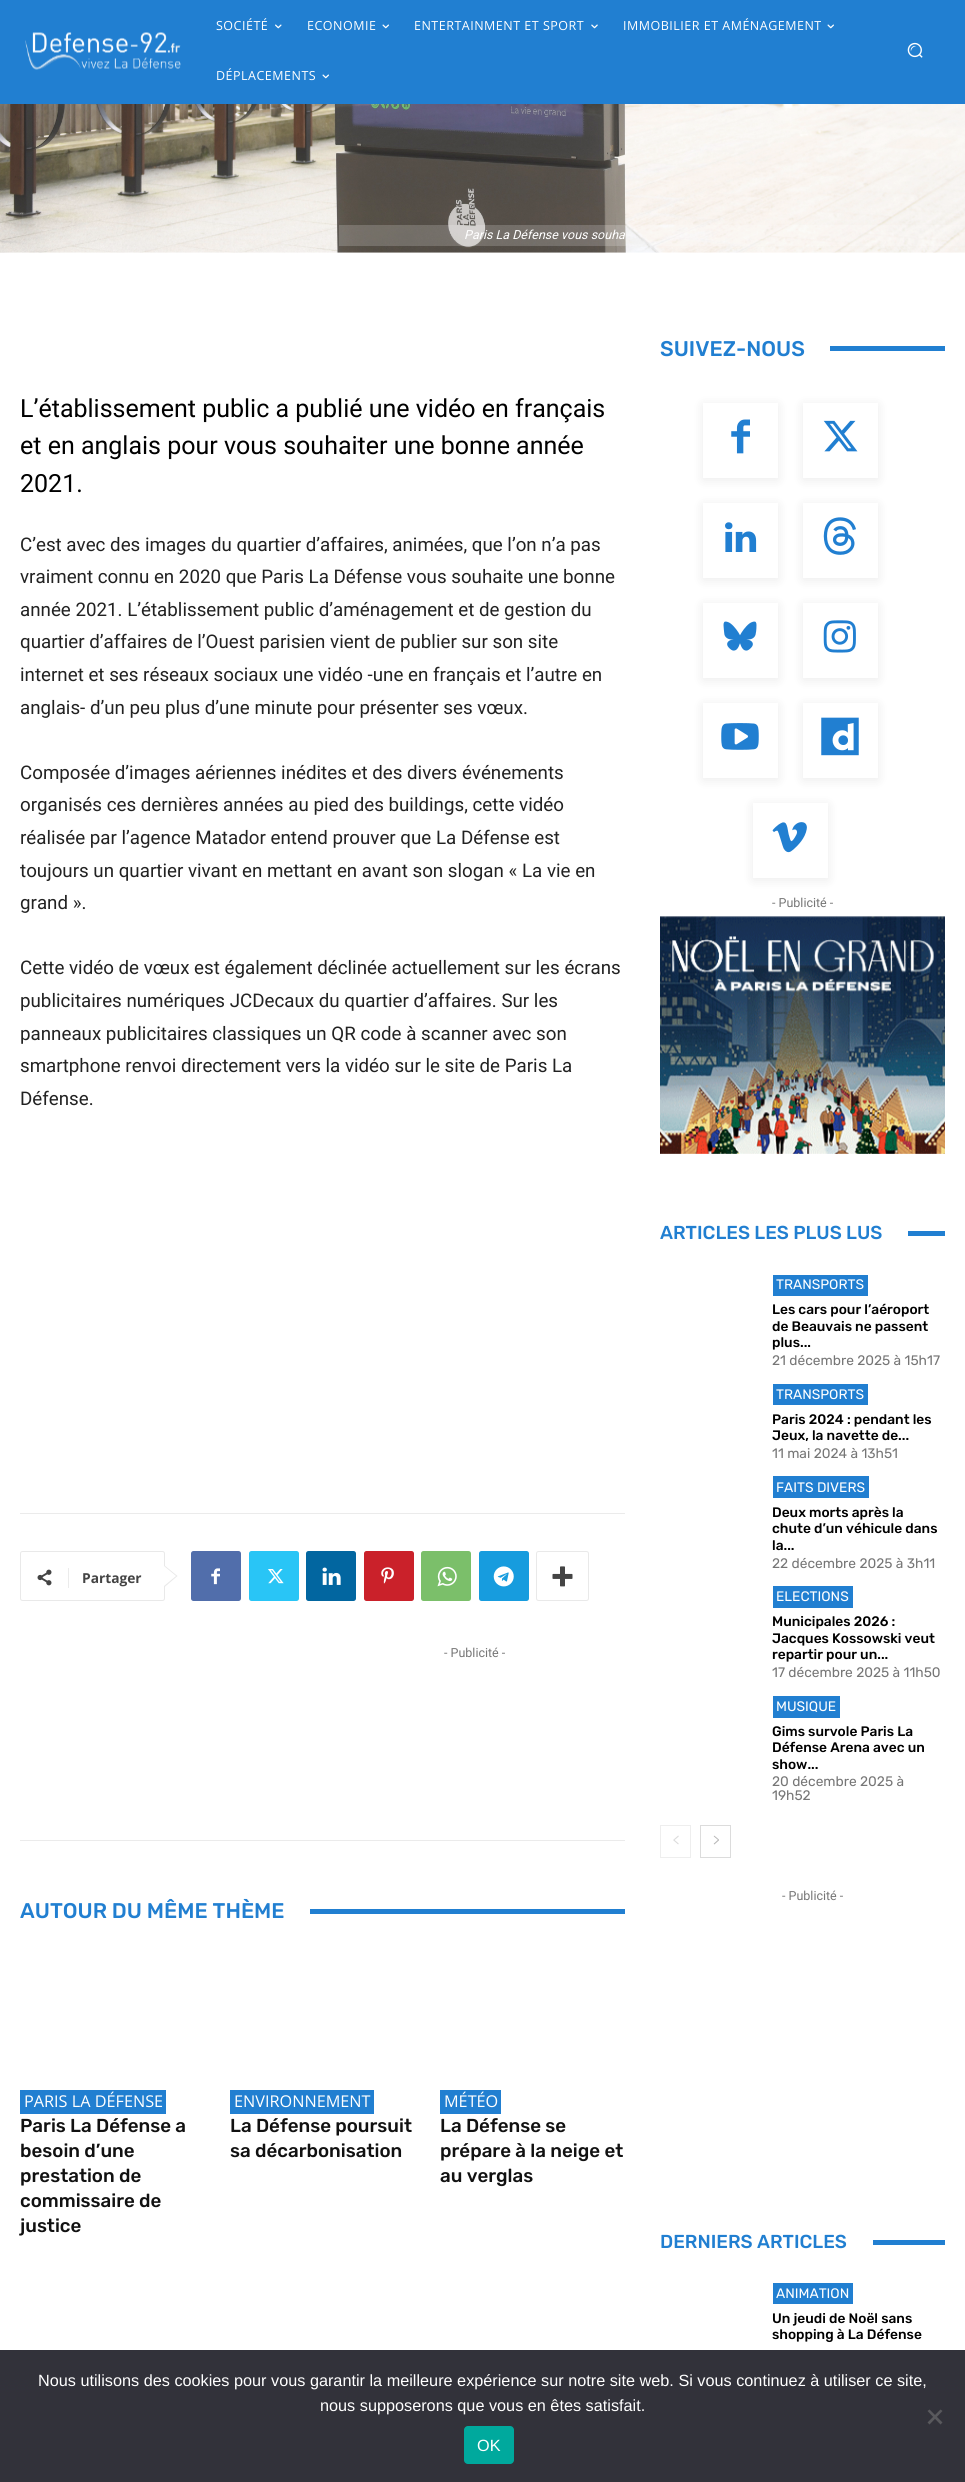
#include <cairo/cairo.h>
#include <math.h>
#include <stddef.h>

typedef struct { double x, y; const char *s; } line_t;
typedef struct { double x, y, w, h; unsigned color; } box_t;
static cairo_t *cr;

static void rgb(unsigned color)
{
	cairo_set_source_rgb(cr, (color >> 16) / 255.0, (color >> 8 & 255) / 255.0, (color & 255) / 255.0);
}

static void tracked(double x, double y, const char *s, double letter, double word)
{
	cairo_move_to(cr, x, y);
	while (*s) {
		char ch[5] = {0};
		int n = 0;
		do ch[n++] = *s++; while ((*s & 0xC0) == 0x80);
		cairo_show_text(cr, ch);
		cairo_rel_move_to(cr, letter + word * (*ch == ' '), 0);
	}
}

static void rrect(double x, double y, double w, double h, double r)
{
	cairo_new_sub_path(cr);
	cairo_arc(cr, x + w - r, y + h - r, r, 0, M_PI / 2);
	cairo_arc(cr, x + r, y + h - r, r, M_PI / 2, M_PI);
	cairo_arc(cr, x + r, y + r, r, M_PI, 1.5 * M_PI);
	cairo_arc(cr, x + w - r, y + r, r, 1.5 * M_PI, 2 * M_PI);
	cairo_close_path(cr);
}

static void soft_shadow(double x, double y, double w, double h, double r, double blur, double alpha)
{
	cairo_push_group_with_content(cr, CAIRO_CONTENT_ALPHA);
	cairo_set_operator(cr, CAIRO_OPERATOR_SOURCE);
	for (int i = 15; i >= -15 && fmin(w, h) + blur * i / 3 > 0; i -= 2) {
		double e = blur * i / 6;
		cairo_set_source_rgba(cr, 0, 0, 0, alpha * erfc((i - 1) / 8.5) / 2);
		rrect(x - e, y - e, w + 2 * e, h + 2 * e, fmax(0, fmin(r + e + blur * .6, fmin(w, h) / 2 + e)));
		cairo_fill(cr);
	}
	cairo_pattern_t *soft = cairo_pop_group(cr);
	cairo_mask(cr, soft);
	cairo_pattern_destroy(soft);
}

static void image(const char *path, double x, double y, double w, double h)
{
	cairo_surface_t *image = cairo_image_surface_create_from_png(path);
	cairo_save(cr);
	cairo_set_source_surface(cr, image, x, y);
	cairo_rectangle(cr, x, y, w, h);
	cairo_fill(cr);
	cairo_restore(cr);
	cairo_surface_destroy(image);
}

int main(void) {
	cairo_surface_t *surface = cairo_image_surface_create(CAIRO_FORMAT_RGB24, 965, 2482);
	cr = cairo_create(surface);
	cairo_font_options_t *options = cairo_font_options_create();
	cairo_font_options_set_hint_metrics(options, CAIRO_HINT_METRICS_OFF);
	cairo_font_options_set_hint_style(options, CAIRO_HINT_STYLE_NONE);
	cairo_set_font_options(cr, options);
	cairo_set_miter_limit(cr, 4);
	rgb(0xffffff);
	cairo_paint(cr);
	rgb(0x217fd1);
	cairo_rectangle(cr, 0, 0, 965, 104);
	cairo_fill(cr);
	image("img/1.png", 25, 32, 156, 38);
	image("img/2.png", 275, 24, 7, 5);
	image("img/3.png", 382, 24, 7, 5);
	image("img/4.png", 591, 24, 7, 5);
	image("img/3.png", 827, 24, 7, 5);
	image("img/3.png", 322, 74, 7, 5);
	image("img/5.png", 907, 42, 16, 16);
	image("img/6.png", 0, 104, 965, 149);
	cairo_set_source_rgba(cr, 1, 1, 1, 0.1);
	cairo_rectangle(cr, 339, 225, 626, 21);
	cairo_fill(cr);
	cairo_rectangle(cr, 339, 225, 626, 21);
	cairo_fill(cr);
	rgb(0xebebeb);
	cairo_rectangle(cr, 20, 1513, 605, 1);
	cairo_fill(cr);
	rrect(20.5, 1551.5, 144, 49, 2);
	rgb(0xe9e9e9);
	cairo_set_line_width(cr, 1);
	cairo_stroke(cr);
	cairo_new_path(cr);
	cairo_move_to(cr, 164, 1587.5);
	cairo_line_to(cr, 164, 1565);
	cairo_line_to(cr, 177.5, 1576);
	cairo_close_path(cr);
	cairo_fill(cr);
	image("img/7.png", 37, 1569, 15, 17);
	rgb(0xebebeb);
	cairo_rectangle(cr, 68, 1568, 1, 20);
	cairo_fill(cr);
	rgb(0xffffff);
	cairo_new_path(cr);
	cairo_move_to(cr, 164, 1586);
	cairo_line_to(cr, 164, 1566);
	cairo_line_to(cr, 176, 1576);
	cairo_close_path(cr);
	cairo_fill(cr);
	rgb(0x516eab);
	rrect(191, 1551, 50, 50, 2.5);
	cairo_fill(cr);
	image("img/8.png", 211, 1568, 9, 17);
	rgb(0x29c5f6);
	rrect(249, 1551, 50, 50, 2.5);
	cairo_fill(cr);
	image("img/9.png", 268, 1569, 16, 15);
	rgb(0x0266a0);
	rrect(306, 1551, 50, 50, 2.5);
	cairo_fill(cr);
	image("img/10.png", 322, 1567, 19, 18);
	rgb(0xca212a);
	rrect(364, 1551, 50, 50, 2.5);
	cairo_fill(cr);
	image("img/11.png", 381, 1567, 13, 17);
	rgb(0x7bbf6a);
	rrect(421, 1551, 50, 50, 2.5);
	cairo_fill(cr);
	image("img/12.png", 437, 1566, 20, 21);
	rgb(0x179cde);
	rrect(479, 1551, 50, 50, 2.5);
	cairo_fill(cr);
	image("img/13.png", 493, 1566, 21, 21);
	rrect(536.5, 1551.5, 52, 49, 2);
	rgb(0xe9e9e9);
	cairo_stroke(cr);
	image("img/14.png", 552, 1566, 21, 21);
	{
		static const box_t items[] = {
			{20, 1840, 605, 1, 0xebebeb},
			{310, 1909, 315, 5, 0x217fd1},
			{20, 2090, 146, 24, 0x217fd1},
			{230, 2090, 144, 24, 0x217fd1},
			{440, 2090, 61, 24, 0x217fd1},
			{830, 346, 115, 5, 0x217fd1},
		};
		for (size_t i = 0; i < sizeof items / sizeof *items; i++) {
			rgb(items[i].color);
			cairo_rectangle(cr, items[i].x, items[i].y, items[i].w, items[i].h);
			cairo_fill(cr);
		}
	}
	cairo_save(cr);
	cairo_set_fill_rule(cr, CAIRO_FILL_RULE_EVEN_ODD);
	cairo_new_path(cr);
	cairo_move_to(cr, 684, 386);
	cairo_line_to(cr, 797, 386);
	cairo_line_to(cr, 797, 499);
	cairo_line_to(cr, 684, 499);
	cairo_close_path(cr);
	cairo_move_to(cr, 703, 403);
	cairo_line_to(cr, 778, 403);
	cairo_line_to(cr, 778, 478);
	cairo_line_to(cr, 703, 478);
	cairo_close_path(cr);
	cairo_clip(cr);
	rgb(0x000000);
	soft_shadow(703, 405, 75, 75, 0, 6, 0.08);
	cairo_restore(cr);
	image("img/15.png", 731, 419, 19, 35);
	cairo_save(cr);
	cairo_set_fill_rule(cr, CAIRO_FILL_RULE_EVEN_ODD);
	cairo_new_path(cr);
	cairo_move_to(cr, 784, 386);
	cairo_line_to(cr, 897, 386);
	cairo_line_to(cr, 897, 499);
	cairo_line_to(cr, 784, 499);
	cairo_close_path(cr);
	cairo_move_to(cr, 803, 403);
	cairo_line_to(cr, 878, 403);
	cairo_line_to(cr, 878, 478);
	cairo_line_to(cr, 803, 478);
	cairo_close_path(cr);
	cairo_clip(cr);
	rgb(0x000000);
	soft_shadow(803, 405, 75, 75, 0, 6, 0.08);
	cairo_restore(cr);
	image("img/16.png", 823, 420, 35, 32);
	cairo_save(cr);
	cairo_set_fill_rule(cr, CAIRO_FILL_RULE_EVEN_ODD);
	cairo_new_path(cr);
	cairo_move_to(cr, 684, 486);
	cairo_line_to(cr, 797, 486);
	cairo_line_to(cr, 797, 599);
	cairo_line_to(cr, 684, 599);
	cairo_close_path(cr);
	cairo_move_to(cr, 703, 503);
	cairo_line_to(cr, 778, 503);
	cairo_line_to(cr, 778, 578);
	cairo_line_to(cr, 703, 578);
	cairo_close_path(cr);
	cairo_clip(cr);
	rgb(0x000000);
	soft_shadow(703, 505, 75, 75, 0, 6, 0.08);
	cairo_restore(cr);
	image("img/17.png", 725, 522, 32, 30);
	cairo_save(cr);
	cairo_set_fill_rule(cr, CAIRO_FILL_RULE_EVEN_ODD);
	cairo_new_path(cr);
	cairo_move_to(cr, 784, 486);
	cairo_line_to(cr, 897, 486);
	cairo_line_to(cr, 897, 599);
	cairo_line_to(cr, 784, 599);
	cairo_close_path(cr);
	cairo_move_to(cr, 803, 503);
	cairo_line_to(cr, 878, 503);
	cairo_line_to(cr, 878, 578);
	cairo_line_to(cr, 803, 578);
	cairo_close_path(cr);
	cairo_clip(cr);
	rgb(0x000000);
	soft_shadow(803, 505, 75, 75, 0, 6, 0.08);
	cairo_restore(cr);
	image("img/18.png", 823, 517, 33, 38);
	cairo_save(cr);
	cairo_set_fill_rule(cr, CAIRO_FILL_RULE_EVEN_ODD);
	cairo_new_path(cr);
	cairo_move_to(cr, 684, 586);
	cairo_line_to(cr, 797, 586);
	cairo_line_to(cr, 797, 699);
	cairo_line_to(cr, 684, 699);
	cairo_close_path(cr);
	cairo_move_to(cr, 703, 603);
	cairo_line_to(cr, 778, 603);
	cairo_line_to(cr, 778, 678);
	cairo_line_to(cr, 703, 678);
	cairo_close_path(cr);
	cairo_clip(cr);
	rgb(0x000000);
	soft_shadow(703, 605, 75, 75, 0, 6, 0.08);
	cairo_restore(cr);
	image("img/19.png", 723, 621, 34, 30);
	cairo_save(cr);
	cairo_set_fill_rule(cr, CAIRO_FILL_RULE_EVEN_ODD);
	cairo_new_path(cr);
	cairo_move_to(cr, 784, 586);
	cairo_line_to(cr, 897, 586);
	cairo_line_to(cr, 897, 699);
	cairo_line_to(cr, 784, 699);
	cairo_close_path(cr);
	cairo_move_to(cr, 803, 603);
	cairo_line_to(cr, 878, 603);
	cairo_line_to(cr, 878, 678);
	cairo_line_to(cr, 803, 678);
	cairo_close_path(cr);
	cairo_clip(cr);
	rgb(0x000000);
	soft_shadow(803, 605, 75, 75, 0, 6, 0.08);
	cairo_restore(cr);
	image("img/20.png", 823, 620, 33, 33);
	cairo_save(cr);
	cairo_set_fill_rule(cr, CAIRO_FILL_RULE_EVEN_ODD);
	cairo_new_path(cr);
	cairo_move_to(cr, 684, 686);
	cairo_line_to(cr, 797, 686);
	cairo_line_to(cr, 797, 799);
	cairo_line_to(cr, 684, 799);
	cairo_close_path(cr);
	cairo_move_to(cr, 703, 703);
	cairo_line_to(cr, 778, 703);
	cairo_line_to(cr, 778, 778);
	cairo_line_to(cr, 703, 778);
	cairo_close_path(cr);
	cairo_clip(cr);
	rgb(0x000000);
	soft_shadow(703, 705, 75, 75, 0, 6, 0.08);
	cairo_restore(cr);
	image("img/21.png", 721, 723, 38, 27);
	cairo_save(cr);
	cairo_set_fill_rule(cr, CAIRO_FILL_RULE_EVEN_ODD);
	cairo_new_path(cr);
	cairo_move_to(cr, 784, 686);
	cairo_line_to(cr, 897, 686);
	cairo_line_to(cr, 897, 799);
	cairo_line_to(cr, 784, 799);
	cairo_close_path(cr);
	cairo_move_to(cr, 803, 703);
	cairo_line_to(cr, 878, 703);
	cairo_line_to(cr, 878, 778);
	cairo_line_to(cr, 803, 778);
	cairo_close_path(cr);
	cairo_clip(cr);
	rgb(0x000000);
	soft_shadow(803, 705, 75, 75, 0, 6, 0.08);
	cairo_restore(cr);
	image("img/22.png", 821, 717, 38, 39);
	cairo_save(cr);
	cairo_set_fill_rule(cr, CAIRO_FILL_RULE_EVEN_ODD);
	cairo_new_path(cr);
	cairo_move_to(cr, 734, 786);
	cairo_line_to(cr, 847, 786);
	cairo_line_to(cr, 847, 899);
	cairo_line_to(cr, 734, 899);
	cairo_close_path(cr);
	cairo_move_to(cr, 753, 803);
	cairo_line_to(cr, 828, 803);
	cairo_line_to(cr, 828, 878);
	cairo_line_to(cr, 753, 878);
	cairo_close_path(cr);
	cairo_clip(cr);
	rgb(0x000000);
	soft_shadow(753, 805, 75, 75, 0, 6, 0.08);
	cairo_restore(cr);
	image("img/23.png", 772, 822, 35, 31);
	image("img/24.png", 660, 916, 285, 238);
	{
		static const box_t items[] = {
			{908, 1231, 37, 5, 0x217fd1},
			{773, 1275, 95, 21, 0x217fd1},
			{773, 1384, 95, 21, 0x217fd1},
			{773, 1476, 96, 22, 0x217fd1},
			{773, 1586, 80, 22, 0x217fd1},
			{773, 1696, 67, 22, 0x217fd1},
		};
		for (size_t i = 0; i < sizeof items / sizeof *items; i++) {
			rgb(items[i].color);
			cairo_rectangle(cr, items[i].x, items[i].y, items[i].w, items[i].h);
			cairo_fill(cr);
		}
	}
	cairo_rectangle(cr, 660.5, 1825.5, 30, 32);
	rgb(0xeeeeee);
	cairo_stroke(cr);
	image("img/25.png", 673, 1835, 6, 10);
	cairo_rectangle(cr, 700.5, 1825.5, 30, 32);
	rgb(0xdcdcdc);
	cairo_stroke(cr);
	image("img/26.png", 713, 1835, 6, 10);
	{
		static const box_t items[] = {
			{873, 2240, 72, 5, 0x217fd1},
			{773, 2283, 80, 21, 0x217fd1},
			{0, 2350, 965, 132, 0x32323a},
		};
		for (size_t i = 0; i < sizeof items / sizeof *items; i++) {
			rgb(items[i].color);
			cairo_rectangle(cr, items[i].x, items[i].y, items[i].w, items[i].h);
			cairo_fill(cr);
		}
	}
	rgb(0x59595d);
	cairo_new_path(cr);
	cairo_move_to(cr, 940.5, 2409.5);
	cairo_line_to(cr, 942.5, 2411);
	cairo_line_to(cr, 929.5, 2424.5);
	cairo_line_to(cr, 927.5, 2422.5);
	cairo_close_path(cr);
	cairo_fill(cr);
	cairo_new_path(cr);
	cairo_move_to(cr, 927.5, 2411);
	cairo_line_to(cr, 929.5, 2409.5);
	cairo_line_to(cr, 942.5, 2422.5);
	cairo_line_to(cr, 940.5, 2424.5);
	cairo_close_path(cr);
	cairo_fill(cr);
	rgb(0x00a99d);
	rrect(464, 2426, 50, 38, 4);
	cairo_fill(cr);
	cairo_select_font_face(cr, "Open Sans", CAIRO_FONT_SLANT_NORMAL, CAIRO_FONT_WEIGHT_NORMAL);
	cairo_set_font_size(cr, 12.5);
	rgb(0xffffff);
	{
		static const line_t items[] = {
			{216, 30, "SOCIÉTÉ"},
			{307, 30, "ECONOMIE"},
			{414, 30, "ENTERTAINMENT ET SPORT"},
			{623, 30, "IMMOBILIER ET AMÉNAGEMENT"},
			{216, 80, "DÉPLACEMENTS"},
		};
		for (size_t i = 0; i < sizeof items / sizeof *items; i++) {
			tracked(items[i].x, items[i].y, items[i].s, 0.5, 0);
		}
	}
	cairo_select_font_face(cr, "Roboto", CAIRO_FONT_SLANT_ITALIC, CAIRO_FONT_WEIGHT_NORMAL);
	cairo_move_to(cr, 464, 239);
	cairo_show_text(cr, "Paris La Défense vous souha");
	cairo_select_font_face(cr, "Roboto", CAIRO_FONT_SLANT_NORMAL, CAIRO_FONT_WEIGHT_NORMAL);
	cairo_set_font_size(cr, 25);
	rgb(0x000000);
	{
		static const line_t items[] = {
			{20, 417, "L’établissement public a publié une vidéo en français"},
			{20, 454, "et en anglais pour vous souhaiter une bonne année"},
			{20, 492, "2021."},
		};
		for (size_t i = 0; i < sizeof items / sizeof *items; i++) {
			cairo_move_to(cr, items[i].x, items[i].y);
			cairo_show_text(cr, items[i].s);
		}
	}
	cairo_set_font_size(cr, 18.75);
	rgb(0x222222);
	{
		static const line_t items[] = {
			{20, 551, "C’est avec des images du quartier d’affaires, animées, que l’on n’a pas"},
			{20, 583, "vraiment connu en 2020 que Paris La Défense vous souhaite une bonne"},
			{20, 616, "année 2021. L’établissement public d’aménagement et de gestion du"},
			{20, 648, "quartier d’affaires de l’Ouest parisien vient de publier sur son site"},
			{20, 681, "internet et ses réseaux sociaux une vidéo -une en français et l’autre en"},
			{20, 714, "anglais- d’un peu plus d’une minute pour présenter ses vœux."},
			{20, 779, "Composée d’images aériennes inédites et des divers événements"},
			{20, 811, "organisés ces dernières années au pied des buildings, cette vidéo"},
			{20, 844, "réalisée par l’agence Matador entend prouver que La Défense est"},
			{20, 877, "toujours un quartier vivant en mettant en avant son slogan « La vie en"},
			{20, 909, "grand »."},
			{20, 974, "Cette vidéo de vœux est également déclinée actuellement sur les écrans"},
			{20, 1007, "publicitaires numériques JCDecaux du quartier d’affaires. Sur les"},
			{20, 1040, "panneaux publicitaires classiques un QR code à scanner avec son"},
			{20, 1072, "smartphone renvoi directement vers la vidéo sur le site de Paris La"},
			{20, 1105, "Défense."},
		};
		for (size_t i = 0; i < sizeof items / sizeof *items; i++) {
			cairo_move_to(cr, items[i].x, items[i].y);
			cairo_show_text(cr, items[i].s);
		}
	}
	cairo_select_font_face(cr, "Open Sans", CAIRO_FONT_SLANT_NORMAL, CAIRO_FONT_WEIGHT_BOLD);
	cairo_set_font_size(cr, 13.75);
	rgb(0x444444);
	cairo_move_to(cr, 82, 1583);
	cairo_show_text(cr, "Partager");
	cairo_select_font_face(cr, "Roboto", CAIRO_FONT_SLANT_NORMAL, CAIRO_FONT_WEIGHT_NORMAL);
	cairo_set_font_size(cr, 12.5);
	rgb(0x767676);
	cairo_move_to(cr, 444, 1657);
	cairo_show_text(cr, "- Publicité -");
	cairo_select_font_face(cr, "Rubik Medium", CAIRO_FONT_SLANT_NORMAL, CAIRO_FONT_WEIGHT_NORMAL);
	cairo_set_font_size(cr, 21.25);
	rgb(0x217fd1);
	cairo_move_to(cr, 20, 1918);
	cairo_show_text(cr, "AUTOUR DU MÊME THÈME");
	cairo_select_font_face(cr, "Open Sans", CAIRO_FONT_SLANT_NORMAL, CAIRO_FONT_WEIGHT_NORMAL);
	cairo_set_font_size(cr, 16.25);
	rgb(0xffffff);
	cairo_move_to(cr, 24, 2107);
	cairo_show_text(cr, "PARIS LA DÉFENSE");
	cairo_select_font_face(cr, "Rubik Medium", CAIRO_FONT_SLANT_NORMAL, CAIRO_FONT_WEIGHT_NORMAL);
	cairo_set_font_size(cr, 18.75);
	rgb(0x111111);
	{
		static const line_t items[] = {
			{20, 2132, "Paris La Défense a"},
			{20, 2157, "besoin d’une"},
			{20, 2182, "prestation de"},
			{20, 2207, "commissaire de"},
			{20, 2232, "justice"},
		};
		for (size_t i = 0; i < sizeof items / sizeof *items; i++) {
			cairo_move_to(cr, items[i].x, items[i].y);
			cairo_show_text(cr, items[i].s);
		}
	}
	cairo_select_font_face(cr, "Open Sans", CAIRO_FONT_SLANT_NORMAL, CAIRO_FONT_WEIGHT_NORMAL);
	cairo_set_font_size(cr, 16.25);
	rgb(0xffffff);
	cairo_move_to(cr, 234, 2107);
	cairo_show_text(cr, "ENVIRONNEMENT");
	cairo_select_font_face(cr, "Rubik Medium", CAIRO_FONT_SLANT_NORMAL, CAIRO_FONT_WEIGHT_NORMAL);
	cairo_set_font_size(cr, 18.75);
	rgb(0x111111);
	cairo_move_to(cr, 230, 2132);
	cairo_show_text(cr, "La Défense poursuit");
	cairo_move_to(cr, 230, 2157);
	cairo_show_text(cr, "sa décarbonisation");
	cairo_select_font_face(cr, "Open Sans", CAIRO_FONT_SLANT_NORMAL, CAIRO_FONT_WEIGHT_NORMAL);
	cairo_set_font_size(cr, 16.25);
	rgb(0xffffff);
	cairo_move_to(cr, 444, 2107);
	cairo_show_text(cr, "MÉTÉO");
	cairo_select_font_face(cr, "Rubik Medium", CAIRO_FONT_SLANT_NORMAL, CAIRO_FONT_WEIGHT_NORMAL);
	cairo_set_font_size(cr, 18.75);
	rgb(0x111111);
	{
		static const line_t items[] = {
			{440, 2132, "La Défense se"},
			{440, 2157, "prépare à la neige et"},
			{440, 2182, "au verglas"},
		};
		for (size_t i = 0; i < sizeof items / sizeof *items; i++) {
			cairo_move_to(cr, items[i].x, items[i].y);
			cairo_show_text(cr, items[i].s);
		}
	}
	cairo_set_font_size(cr, 21.25);
	rgb(0x217fd1);
	cairo_move_to(cr, 660, 356);
	cairo_show_text(cr, "SUIVEZ-NOUS");
	cairo_select_font_face(cr, "Roboto", CAIRO_FONT_SLANT_NORMAL, CAIRO_FONT_WEIGHT_NORMAL);
	cairo_set_font_size(cr, 12.5);
	rgb(0x767676);
	cairo_move_to(cr, 772, 907);
	cairo_show_text(cr, "- Publicité -");
	cairo_select_font_face(cr, "Rubik Medium", CAIRO_FONT_SLANT_NORMAL, CAIRO_FONT_WEIGHT_NORMAL);
	cairo_set_font_size(cr, 18.75);
	rgb(0x217fd1);
	cairo_move_to(cr, 660, 1239);
	cairo_show_text(cr, "ARTICLES LES PLUS LUS");
	cairo_select_font_face(cr, "Rubik", CAIRO_FONT_SLANT_NORMAL, CAIRO_FONT_WEIGHT_NORMAL);
	cairo_set_font_size(cr, 13.75);
	rgb(0xffffff);
	cairo_move_to(cr, 776, 1289);
	cairo_show_text(cr, "TRANSPORTS");
	cairo_select_font_face(cr, "Rubik Medium", CAIRO_FONT_SLANT_NORMAL, CAIRO_FONT_WEIGHT_NORMAL);
	rgb(0x000000);
	{
		static const line_t items[] = {
			{772, 1314, "Les cars pour l’aéroport"},
			{772, 1331, "de Beauvais ne passent"},
			{772, 1347, "plus..."},
		};
		for (size_t i = 0; i < sizeof items / sizeof *items; i++) {
			cairo_move_to(cr, items[i].x, items[i].y);
			cairo_show_text(cr, items[i].s);
		}
	}
	cairo_select_font_face(cr, "Rubik", CAIRO_FONT_SLANT_NORMAL, CAIRO_FONT_WEIGHT_NORMAL);
	rgb(0x767676);
	cairo_move_to(cr, 772, 1365);
	cairo_show_text(cr, "21 décembre 2025 à 15h17");
	rgb(0xffffff);
	cairo_move_to(cr, 776, 1399);
	cairo_show_text(cr, "TRANSPORTS");
	cairo_select_font_face(cr, "Rubik Medium", CAIRO_FONT_SLANT_NORMAL, CAIRO_FONT_WEIGHT_NORMAL);
	rgb(0x000000);
	cairo_move_to(cr, 772, 1424);
	cairo_show_text(cr, "Paris 2024 : pendant les");
	cairo_move_to(cr, 772, 1440);
	cairo_show_text(cr, "Jeux, la navette de...");
	cairo_select_font_face(cr, "Rubik", CAIRO_FONT_SLANT_NORMAL, CAIRO_FONT_WEIGHT_NORMAL);
	rgb(0x767676);
	cairo_move_to(cr, 772, 1458);
	cairo_show_text(cr, "11 mai 2024 à 13h51");
	rgb(0xffffff);
	cairo_move_to(cr, 776, 1492);
	cairo_show_text(cr, "FAITS DIVERS");
	cairo_select_font_face(cr, "Rubik Medium", CAIRO_FONT_SLANT_NORMAL, CAIRO_FONT_WEIGHT_NORMAL);
	rgb(0x000000);
	{
		static const line_t items[] = {
			{772, 1517, "Deux morts après la"},
			{772, 1533, "chute d’un véhicule dans"},
			{772, 1550, "la..."},
		};
		for (size_t i = 0; i < sizeof items / sizeof *items; i++) {
			cairo_move_to(cr, items[i].x, items[i].y);
			cairo_show_text(cr, items[i].s);
		}
	}
	cairo_select_font_face(cr, "Rubik", CAIRO_FONT_SLANT_NORMAL, CAIRO_FONT_WEIGHT_NORMAL);
	rgb(0x767676);
	cairo_move_to(cr, 772, 1568);
	cairo_show_text(cr, "22 décembre 2025 à 3h11");
	rgb(0xffffff);
	cairo_move_to(cr, 776, 1601);
	cairo_show_text(cr, "ELECTIONS");
	cairo_select_font_face(cr, "Rubik Medium", CAIRO_FONT_SLANT_NORMAL, CAIRO_FONT_WEIGHT_NORMAL);
	rgb(0x000000);
	{
		static const line_t items[] = {
			{772, 1626, "Municipales 2026 :"},
			{772, 1643, "Jacques Kossowski veut"},
			{772, 1659, "repartir pour un..."},
		};
		for (size_t i = 0; i < sizeof items / sizeof *items; i++) {
			cairo_move_to(cr, items[i].x, items[i].y);
			cairo_show_text(cr, items[i].s);
		}
	}
	cairo_select_font_face(cr, "Rubik", CAIRO_FONT_SLANT_NORMAL, CAIRO_FONT_WEIGHT_NORMAL);
	rgb(0x767676);
	cairo_move_to(cr, 772, 1677);
	cairo_show_text(cr, "17 décembre 2025 à 11h50");
	rgb(0xffffff);
	cairo_move_to(cr, 776, 1711);
	cairo_show_text(cr, "MUSIQUE");
	cairo_select_font_face(cr, "Rubik Medium", CAIRO_FONT_SLANT_NORMAL, CAIRO_FONT_WEIGHT_NORMAL);
	rgb(0x000000);
	{
		static const line_t items[] = {
			{772, 1736, "Gims survole Paris La"},
			{772, 1752, "Défense Arena avec un"},
			{772, 1769, "show..."},
		};
		for (size_t i = 0; i < sizeof items / sizeof *items; i++) {
			cairo_move_to(cr, items[i].x, items[i].y);
			cairo_show_text(cr, items[i].s);
		}
	}
	cairo_select_font_face(cr, "Rubik", CAIRO_FONT_SLANT_NORMAL, CAIRO_FONT_WEIGHT_NORMAL);
	rgb(0x767676);
	cairo_move_to(cr, 772, 1786);
	cairo_show_text(cr, "20 décembre 2025 à");
	cairo_move_to(cr, 772, 1800);
	cairo_show_text(cr, "19h52");
	cairo_select_font_face(cr, "Roboto", CAIRO_FONT_SLANT_NORMAL, CAIRO_FONT_WEIGHT_NORMAL);
	cairo_set_font_size(cr, 12.5);
	cairo_move_to(cr, 782, 1900);
	cairo_show_text(cr, "- Publicité -");
	cairo_select_font_face(cr, "Rubik Medium", CAIRO_FONT_SLANT_NORMAL, CAIRO_FONT_WEIGHT_NORMAL);
	cairo_set_font_size(cr, 18.75);
	rgb(0x217fd1);
	cairo_move_to(cr, 660, 2248);
	cairo_show_text(cr, "DERNIERS ARTICLES");
	cairo_select_font_face(cr, "Rubik", CAIRO_FONT_SLANT_NORMAL, CAIRO_FONT_WEIGHT_NORMAL);
	cairo_set_font_size(cr, 13.75);
	rgb(0xffffff);
	cairo_move_to(cr, 776, 2298);
	cairo_show_text(cr, "ANIMATION");
	cairo_select_font_face(cr, "Rubik Medium", CAIRO_FONT_SLANT_NORMAL, CAIRO_FONT_WEIGHT_NORMAL);
	rgb(0x000000);
	cairo_move_to(cr, 772, 2323);
	cairo_show_text(cr, "Un jeudi de Noël sans");
	cairo_move_to(cr, 772, 2339);
	cairo_show_text(cr, "shopping à La Défense");
	cairo_select_font_face(cr, "Liberation Sans", CAIRO_FONT_SLANT_NORMAL, CAIRO_FONT_WEIGHT_NORMAL);
	cairo_set_font_size(cr, 16.25);
	rgb(0xffffff);
	{
		static const line_t items[] = {
			{38, 2386, "Nous utilisons des cookies pour vous garantir la meilleure expérience sur notre site web. Si vous continuez à utiliser ce site,"},
			{320, 2411, "nous supposerons que vous en êtes satisfait."},
			{477, 2451, "OK"},
		};
		for (size_t i = 0; i < sizeof items / sizeof *items; i++) {
			cairo_move_to(cr, items[i].x, items[i].y);
			cairo_show_text(cr, items[i].s);
		}
	}
	cairo_surface_write_to_png(surface, "page.png");
	cairo_font_options_destroy(options);
	cairo_destroy(cr);
	cairo_surface_destroy(surface);
	return 0;
}
